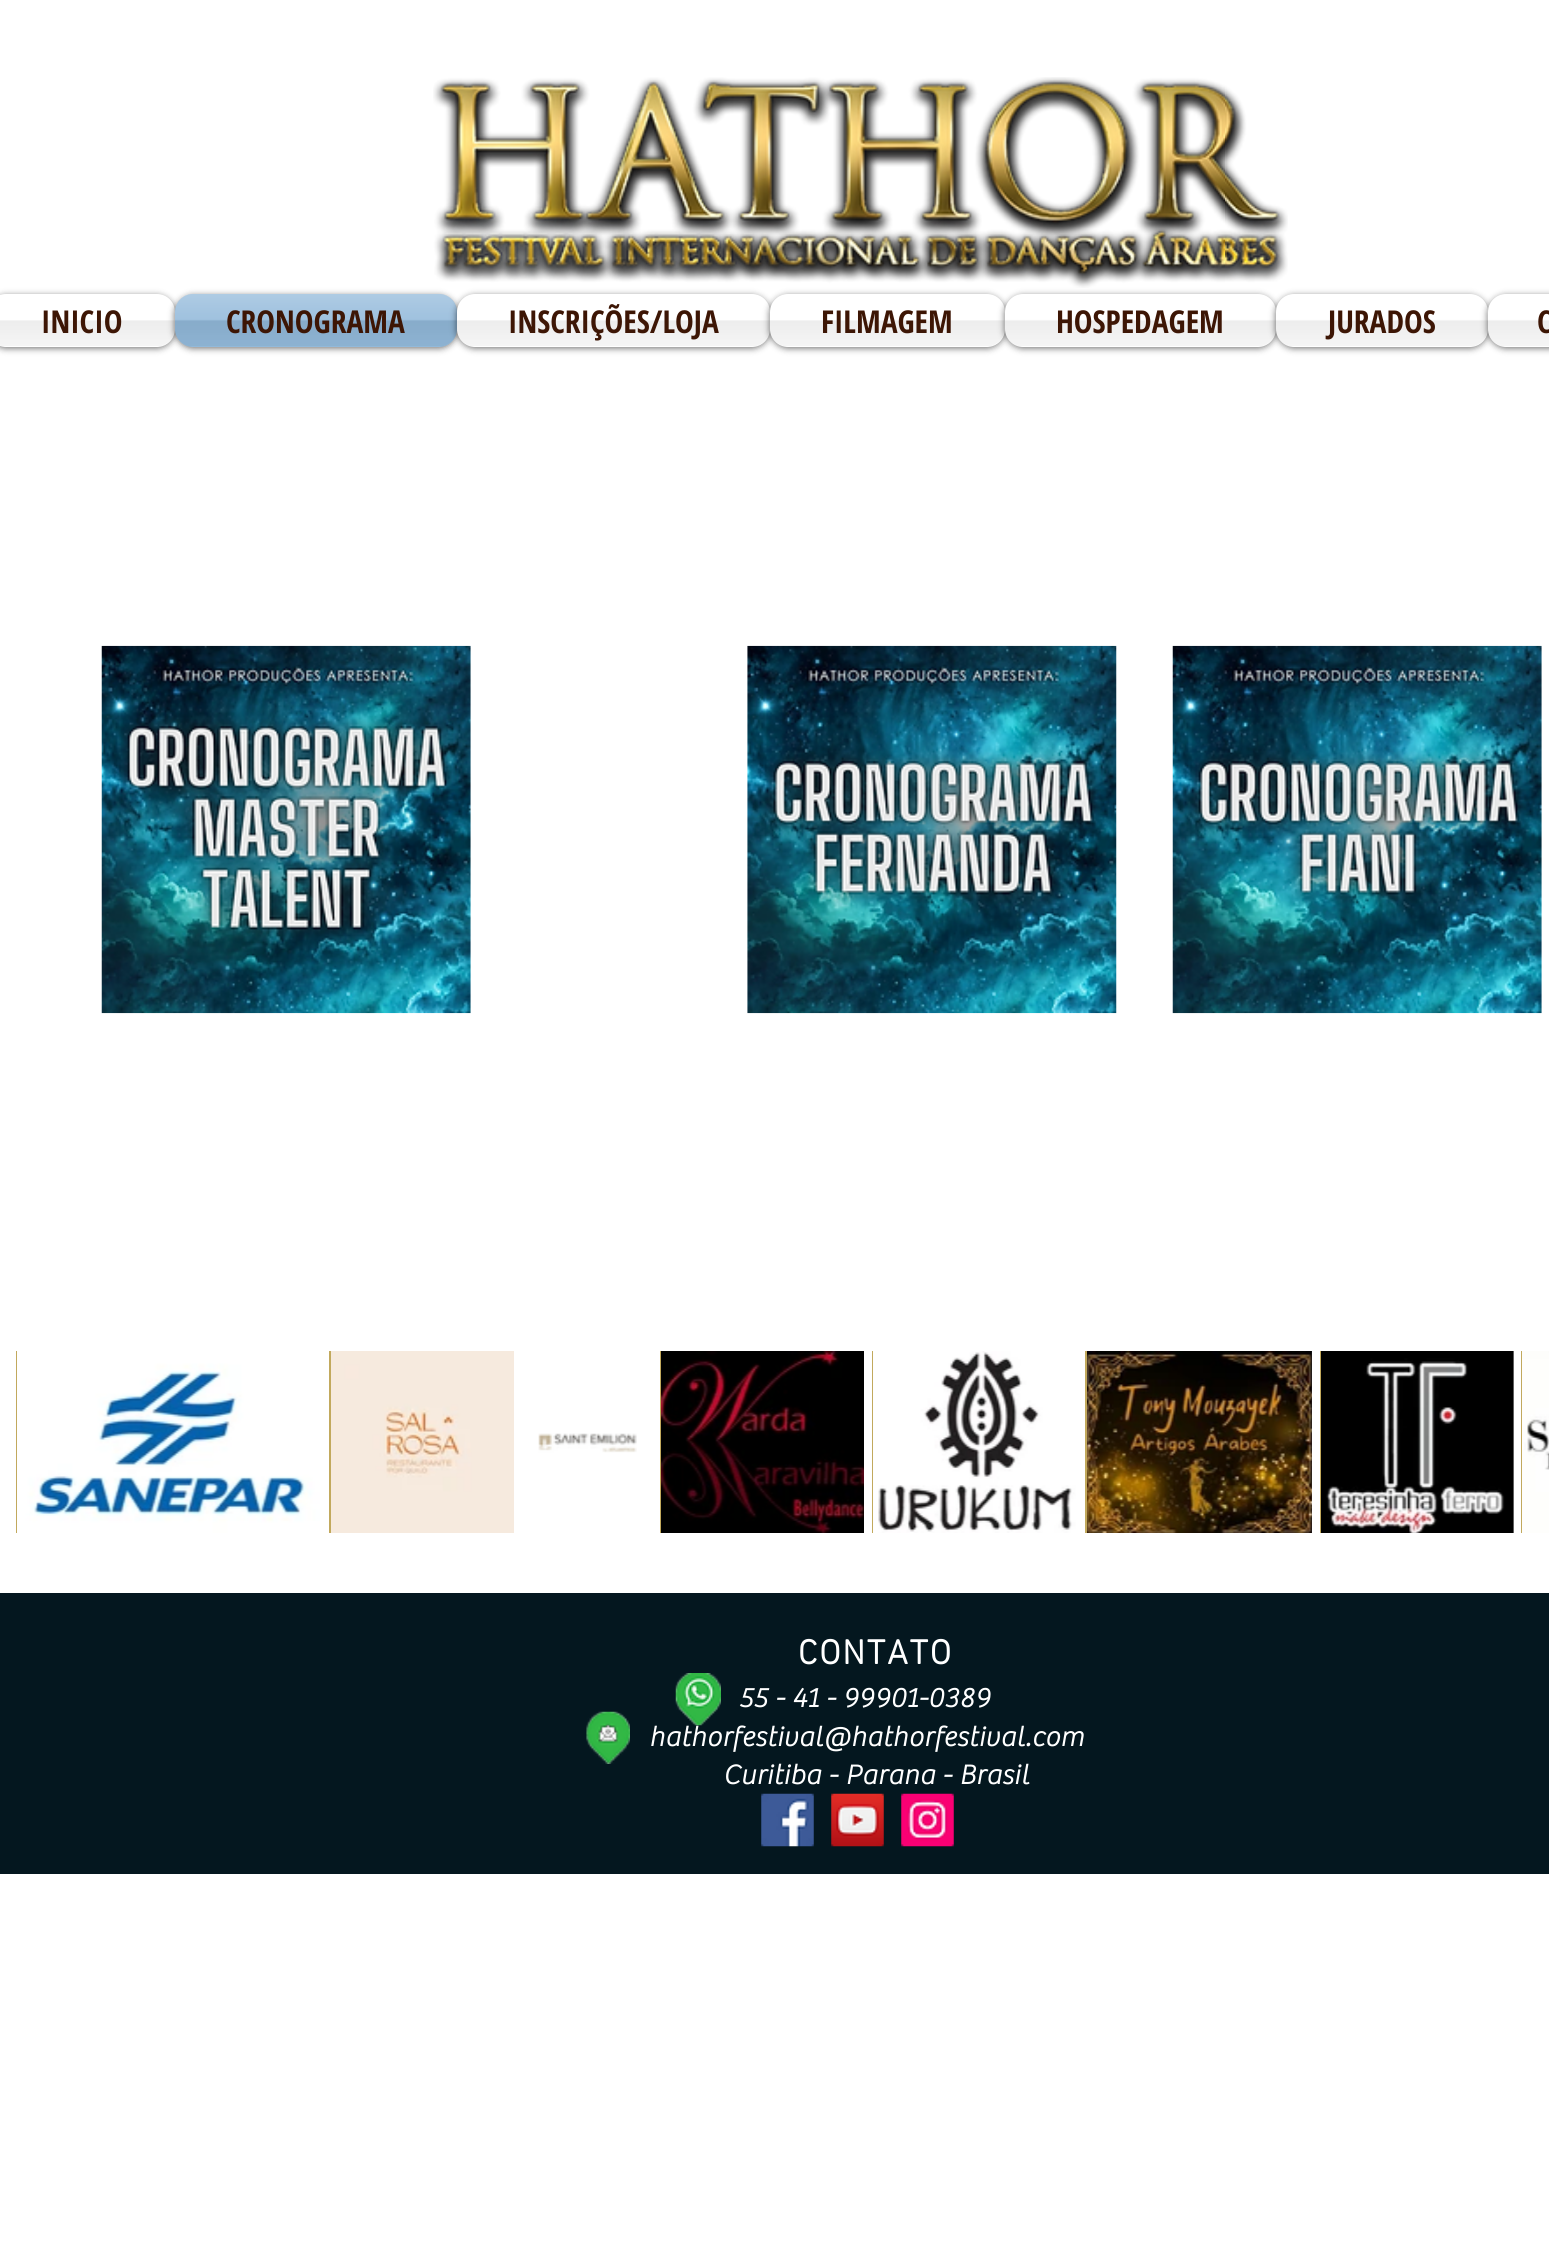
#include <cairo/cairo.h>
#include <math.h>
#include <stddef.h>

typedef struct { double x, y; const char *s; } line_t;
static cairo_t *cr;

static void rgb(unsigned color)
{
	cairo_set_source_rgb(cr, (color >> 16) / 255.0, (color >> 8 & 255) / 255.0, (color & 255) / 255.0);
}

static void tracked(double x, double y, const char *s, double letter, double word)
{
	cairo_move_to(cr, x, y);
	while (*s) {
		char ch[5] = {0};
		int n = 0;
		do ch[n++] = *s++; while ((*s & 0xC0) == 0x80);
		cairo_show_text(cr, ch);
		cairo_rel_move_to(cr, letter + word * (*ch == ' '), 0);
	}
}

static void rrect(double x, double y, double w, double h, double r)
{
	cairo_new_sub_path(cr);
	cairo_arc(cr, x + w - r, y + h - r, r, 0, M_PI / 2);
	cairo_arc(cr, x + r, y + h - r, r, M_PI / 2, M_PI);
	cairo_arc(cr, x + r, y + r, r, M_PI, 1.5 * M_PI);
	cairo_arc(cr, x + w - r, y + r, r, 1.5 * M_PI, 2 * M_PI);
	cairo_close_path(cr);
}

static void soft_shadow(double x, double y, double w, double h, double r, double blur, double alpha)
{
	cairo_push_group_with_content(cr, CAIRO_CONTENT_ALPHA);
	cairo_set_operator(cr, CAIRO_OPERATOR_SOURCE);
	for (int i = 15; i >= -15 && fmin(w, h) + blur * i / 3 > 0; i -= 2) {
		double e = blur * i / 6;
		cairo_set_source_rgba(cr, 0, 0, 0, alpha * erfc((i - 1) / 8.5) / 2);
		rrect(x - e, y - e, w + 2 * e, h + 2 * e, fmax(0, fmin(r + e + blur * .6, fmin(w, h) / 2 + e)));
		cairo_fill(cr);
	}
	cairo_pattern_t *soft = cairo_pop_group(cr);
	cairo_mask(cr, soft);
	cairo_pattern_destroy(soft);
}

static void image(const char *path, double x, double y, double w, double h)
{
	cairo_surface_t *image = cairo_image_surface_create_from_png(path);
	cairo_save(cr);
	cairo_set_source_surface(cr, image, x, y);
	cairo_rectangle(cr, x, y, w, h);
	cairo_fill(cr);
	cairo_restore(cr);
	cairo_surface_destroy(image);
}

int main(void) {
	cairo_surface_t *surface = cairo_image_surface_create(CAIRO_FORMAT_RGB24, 1549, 2256);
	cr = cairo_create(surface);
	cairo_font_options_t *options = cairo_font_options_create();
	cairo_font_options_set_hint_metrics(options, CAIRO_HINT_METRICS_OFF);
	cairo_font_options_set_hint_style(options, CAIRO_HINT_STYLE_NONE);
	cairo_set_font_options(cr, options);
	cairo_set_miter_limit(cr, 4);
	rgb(0xffffff);
	cairo_paint(cr);
	image("img/1.png", 433, 77, 855, 211);
	rgb(0x000000);
	soft_shadow(-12, 296, 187, 52, 18, 3.5, 0.6);
	rgb(0xffffff);
	rrect(-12, 294, 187, 53, 18);
	cairo_fill(cr);
	image("img/2.png", 0, 320, 175, 26);
	rgb(0x000000);
	soft_shadow(175, 296, 282, 52, 18, 3.5, 0.6);
	rgb(0x92b9da);
	rrect(175, 294, 282, 53, 18);
	cairo_fill(cr);
	image("img/3.png", 175, 294, 282, 52);
	rgb(0x000000);
	soft_shadow(457, 296, 313, 52, 18, 3.5, 0.6);
	rgb(0xffffff);
	rrect(457, 294, 313, 53, 18);
	cairo_fill(cr);
	image("img/4.png", 457, 320, 313, 26);
	rgb(0x000000);
	soft_shadow(770, 296, 235, 52, 18, 3.5, 0.6);
	rgb(0xffffff);
	rrect(770, 294, 235, 53, 18);
	cairo_fill(cr);
	image("img/5.png", 770, 320, 234, 26);
	rgb(0x000000);
	soft_shadow(1005, 296, 271, 52, 18, 3.5, 0.6);
	rgb(0xffffff);
	rrect(1005, 294, 271, 53, 18);
	cairo_fill(cr);
	image("img/6.png", 1004, 306, 272, 40);
	rgb(0x000000);
	soft_shadow(1276, 296, 212, 52, 18, 3.5, 0.6);
	rgb(0xffffff);
	rrect(1276, 294, 212, 53, 18);
	cairo_fill(cr);
	image("img/7.png", 1276, 306, 211, 40);
	rgb(0x000000);
	soft_shadow(1488, 296, 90, 52, 18, 3.5, 0.6);
	rgb(0xffffff);
	rrect(1488, 294, 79, 53, 18);
	cairo_fill(cr);
	image("img/8.png", 1487, 305, 62, 41);
	image("img/9.png", 101, 645, 370, 369);
	image("img/10.png", 747, 645, 370, 369);
	image("img/11.png", 1172, 645, 370, 369);
	rgb(0xc2a95d);
	cairo_rectangle(cr, 16, 1351, 1, 182);
	cairo_fill(cr);
	image("img/12.png", 17, 1351, 303, 182);
	cairo_rectangle(cr, 329, 1351, 2, 182);
	cairo_fill(cr);
	image("img/13.png", 331, 1351, 183, 182);
	image("img/14.png", 538, 1433, 99, 20);
	cairo_rectangle(cr, 660, 1351, 1, 182);
	cairo_fill(cr);
	image("img/15.png", 661, 1351, 203, 182);
	cairo_rectangle(cr, 872, 1351, 1, 182);
	cairo_fill(cr);
	image("img/16.png", 873, 1351, 203, 182);
	cairo_rectangle(cr, 1085, 1351, 2, 182);
	cairo_fill(cr);
	image("img/17.png", 1087, 1351, 225, 182);
	cairo_rectangle(cr, 1320, 1351, 1, 182);
	cairo_fill(cr);
	image("img/18.png", 1321, 1351, 193, 182);
	cairo_rectangle(cr, 1521, 1351, 1, 182);
	cairo_fill(cr);
	image("img/19.png", 1522, 1351, 27, 182);
	rgb(0x04171f);
	cairo_rectangle(cr, 0, 1593, 1549, 281);
	cairo_fill(cr);
	image("img/20.png", 675, 1673, 46, 53);
	image("img/21.png", 586, 1711, 44, 53);
	image("img/22.png", 761, 1793, 53, 54);
	image("img/23.png", 831, 1793, 53, 54);
	image("img/24.png", 901, 1793, 53, 54);
	cairo_select_font_face(cr, "Open Sans Condensed", CAIRO_FONT_SLANT_NORMAL, CAIRO_FONT_WEIGHT_BOLD);
	cairo_set_font_size(cr, 31.5);
	rgb(0x3d1605);
	{
		static const line_t items[] = {
			{41, 333, "INICIO"},
			{226, 333, "CRONOGRAMA"},
			{508, 333, "INSCRIÇÕES/LOJA"},
			{821, 333, "FILMAGEM"},
			{1056, 333, "HOSPEDAGEM"},
			{1328, 333, "JURADOS"},
			{1537, 333, "C"},
		};
		for (size_t i = 0; i < sizeof items / sizeof *items; i++) {
			cairo_move_to(cr, items[i].x, items[i].y);
			cairo_show_text(cr, items[i].s);
		}
	}
	cairo_select_font_face(cr, "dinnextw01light", CAIRO_FONT_SLANT_NORMAL, CAIRO_FONT_WEIGHT_BOLD);
	cairo_set_font_size(cr, 35);
	rgb(0xffffff);
	tracked(798, 1664, "CONTATO", 1.75, 0);
	cairo_select_font_face(cr, "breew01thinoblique", CAIRO_FONT_SLANT_NORMAL, CAIRO_FONT_WEIGHT_BOLD);
	cairo_set_font_size(cr, 28);
	{
		static const line_t items[] = {
			{739, 1707, "55 - 41 - 99901-0389"},
			{649, 1746, "hathorfestival@hathorfestival.com"},
			{723, 1784, "Curitiba - Parana - Brasil"},
		};
		for (size_t i = 0; i < sizeof items / sizeof *items; i++) {
			tracked(items[i].x, items[i].y, items[i].s, 0.85, 0);
		}
	}
	cairo_surface_write_to_png(surface, "page.png");
	cairo_font_options_destroy(options);
	cairo_destroy(cr);
	cairo_surface_destroy(surface);
	return 0;
}
